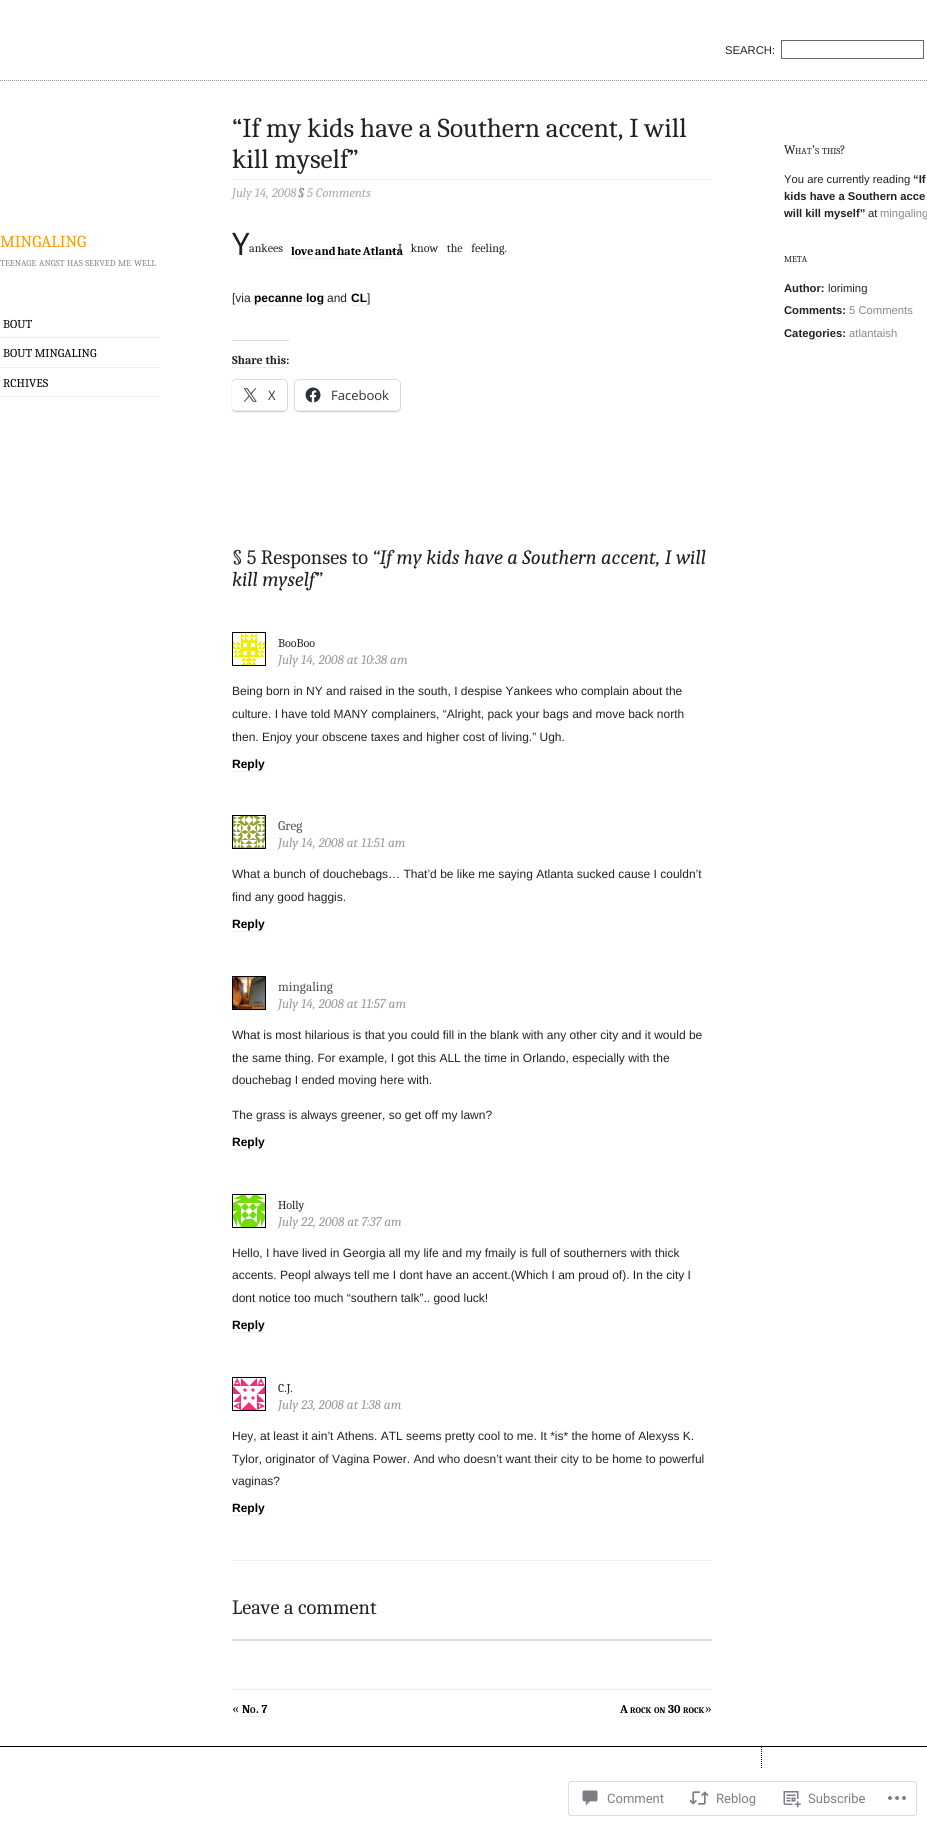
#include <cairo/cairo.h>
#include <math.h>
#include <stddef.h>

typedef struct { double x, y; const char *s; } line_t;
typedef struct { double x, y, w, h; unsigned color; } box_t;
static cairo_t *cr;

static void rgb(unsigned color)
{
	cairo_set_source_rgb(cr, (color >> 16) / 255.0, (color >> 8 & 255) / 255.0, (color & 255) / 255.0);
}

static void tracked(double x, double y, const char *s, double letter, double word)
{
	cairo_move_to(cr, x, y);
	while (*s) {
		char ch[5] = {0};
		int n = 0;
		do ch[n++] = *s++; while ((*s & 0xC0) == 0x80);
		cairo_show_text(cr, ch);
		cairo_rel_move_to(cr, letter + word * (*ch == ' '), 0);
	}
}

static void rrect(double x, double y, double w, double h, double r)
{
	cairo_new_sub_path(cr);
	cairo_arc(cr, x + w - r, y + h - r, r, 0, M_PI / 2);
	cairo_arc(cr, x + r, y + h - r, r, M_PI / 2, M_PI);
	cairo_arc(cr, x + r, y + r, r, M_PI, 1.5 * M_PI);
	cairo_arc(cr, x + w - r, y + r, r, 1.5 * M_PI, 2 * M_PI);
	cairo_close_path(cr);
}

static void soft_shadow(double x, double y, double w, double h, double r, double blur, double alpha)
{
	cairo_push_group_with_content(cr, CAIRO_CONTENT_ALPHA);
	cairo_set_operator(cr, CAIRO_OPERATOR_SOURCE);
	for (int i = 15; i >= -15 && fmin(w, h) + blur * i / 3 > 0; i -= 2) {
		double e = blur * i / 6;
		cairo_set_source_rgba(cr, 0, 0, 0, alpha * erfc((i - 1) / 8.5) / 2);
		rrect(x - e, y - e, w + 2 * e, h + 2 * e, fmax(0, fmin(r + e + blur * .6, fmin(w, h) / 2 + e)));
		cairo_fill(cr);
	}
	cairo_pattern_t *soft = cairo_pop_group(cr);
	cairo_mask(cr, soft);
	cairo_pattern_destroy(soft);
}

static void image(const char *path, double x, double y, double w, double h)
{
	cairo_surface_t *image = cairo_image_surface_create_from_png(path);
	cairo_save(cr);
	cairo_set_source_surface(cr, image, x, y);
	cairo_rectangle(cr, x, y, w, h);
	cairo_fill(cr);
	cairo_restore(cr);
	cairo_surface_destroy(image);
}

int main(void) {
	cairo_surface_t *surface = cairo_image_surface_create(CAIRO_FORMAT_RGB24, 927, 1826);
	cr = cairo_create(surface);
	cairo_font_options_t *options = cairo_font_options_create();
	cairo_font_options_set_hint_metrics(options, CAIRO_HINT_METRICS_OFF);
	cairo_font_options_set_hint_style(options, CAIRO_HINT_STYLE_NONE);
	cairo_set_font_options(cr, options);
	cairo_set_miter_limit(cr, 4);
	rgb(0xffffff);
	cairo_paint(cr);
	cairo_new_path(cr);
	cairo_move_to(cr, 0, 80.5);
	cairo_line_to(cr, 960, 80.5);
	rgb(0x999999);
	cairo_set_line_width(cr, 1);
	cairo_set_dash(cr, (double[]){1, 1}, 2, 0);
	cairo_stroke(cr);
	cairo_rectangle(cr, 781.5, 40.5, 142, 18);
	rgb(0x666666);
	cairo_set_dash(cr, NULL, 0, 0);
	cairo_stroke(cr);
	{
		static const box_t items[] = {
			{0, 337, 160, 1, 0xeeeeee},
			{0, 367, 160, 1, 0xeeeeee},
			{0, 396, 160, 1, 0xeeeeee},
			{232, 179, 480, 1, 0xeeeeee},
			{291, 258, 100, 1, 0xeeeeee},
			{254, 305, 70, 1, 0xeeeeee},
			{351, 305, 16, 1, 0xeeeeee},
			{232, 367, 57, 1, 0xeeeeee},
			{232, 340, 57, 1, 0xdcdcde},
		};
		for (size_t i = 0; i < sizeof items / sizeof *items; i++) {
			rgb(items[i].color);
			cairo_rectangle(cr, items[i].x, items[i].y, items[i].w, items[i].h);
			cairo_fill(cr);
		}
	}
	cairo_save(cr);
	cairo_rectangle(cr, 232, 226, 480, 1415);
	cairo_clip(cr);
	rrect(231.5, 379.5, 56, 32, 4.5);
	rgb(0xe0e0e0);
	cairo_stroke(cr);
	cairo_restore(cr);
	rgb(0x000000);
	soft_shadow(232, 381, 55, 31, 4, 1, 0.12);
	rgb(0xffffff);
	rrect(232, 380, 55, 31, 4);
	cairo_fill(cr);
	rgb(0xeeeeee);
	cairo_rectangle(cr, 234, 410, 51, 1);
	cairo_fill(cr);
	image("img/1.png", 243, 388, 14, 14);
	rrect(294.5, 379.5, 106, 32, 4.5);
	rgb(0xe0e0e0);
	cairo_stroke(cr);
	rgb(0x000000);
	soft_shadow(295, 381, 105, 31, 4, 1, 0.12);
	rgb(0xffffff);
	rrect(295, 380, 105, 31, 4);
	cairo_fill(cr);
	rgb(0xeeeeee);
	cairo_rectangle(cr, 297, 410, 101, 1);
	cairo_fill(cr);
	image("img/2.png", 305, 387, 16, 16);
	cairo_rectangle(cr, 232.5, 632.5, 33, 33);
	rgb(0x000000);
	cairo_stroke(cr);
	image("img/3.png", 233, 633, 32, 32);
	rgb(0xeeeeee);
	cairo_rectangle(cr, 232, 771, 33, 1);
	cairo_fill(cr);
	cairo_rectangle(cr, 232.5, 815.5, 33, 33);
	rgb(0x000000);
	cairo_stroke(cr);
	image("img/4.png", 233, 816, 32, 32);
	rgb(0xeeeeee);
	cairo_rectangle(cr, 232, 931, 33, 1);
	cairo_fill(cr);
	cairo_rectangle(cr, 232.5, 976.5, 33, 33);
	rgb(0x000000);
	cairo_stroke(cr);
	image("img/5.png", 233, 977, 32, 32);
	rgb(0xeeeeee);
	cairo_rectangle(cr, 232, 1149, 33, 1);
	cairo_fill(cr);
	cairo_rectangle(cr, 232.5, 1194.5, 33, 33);
	rgb(0x000000);
	cairo_stroke(cr);
	image("img/6.png", 233, 1195, 32, 32);
	rgb(0xeeeeee);
	cairo_rectangle(cr, 232, 1332, 33, 1);
	cairo_fill(cr);
	cairo_rectangle(cr, 232.5, 1377.5, 33, 33);
	rgb(0x000000);
	cairo_stroke(cr);
	image("img/7.png", 233, 1378, 32, 32);
	{
		static const box_t items[] = {
			{232, 1515, 33, 1, 0xeeeeee},
			{232, 1560, 480, 1, 0xeeeeee},
			{232, 1639, 480, 2, 0xdcdcde},
			{232, 1689, 480, 1, 0xeeeeee},
			{242, 1716, 25, 1, 0xeeeeee},
			{620, 1716, 82, 1, 0xeeeeee},
			{0, 1746, 927, 1, 0x000000},
		};
		for (size_t i = 0; i < sizeof items / sizeof *items; i++) {
			rgb(items[i].color);
			cairo_rectangle(cr, items[i].x, items[i].y, items[i].w, items[i].h);
			cairo_fill(cr);
		}
	}
	cairo_new_path(cr);
	cairo_move_to(cr, 761.5, 1747);
	cairo_line_to(cr, 761.5, 1769);
	cairo_set_dash(cr, (double[]){1, 1}, 2, 0);
	cairo_stroke(cr);
	rrect(568.5, 1781.5, 348, 34, 2.5);
	rgb(0xdddddf);
	cairo_set_dash(cr, NULL, 0, 0);
	cairo_stroke(cr);
	image("img/8.png", 582, 1790, 16, 16);
	image("img/9.png", 689, 1791, 20, 14);
	image("img/10.png", 783, 1791, 18, 17);
	image("img/11.png", 888, 1796, 18, 4);
	cairo_select_font_face(cr, "Liberation Sans", CAIRO_FONT_SLANT_NORMAL, CAIRO_FONT_WEIGHT_NORMAL);
	cairo_set_font_size(cr, 11.25);
	rgb(0x222222);
	cairo_move_to(cr, 725, 54);
	cairo_show_text(cr, "SEARCH:");
	cairo_select_font_face(cr, "Caladea", CAIRO_FONT_SLANT_NORMAL, CAIRO_FONT_WEIGHT_NORMAL);
	cairo_set_font_size(cr, 16.75);
	rgb(0xff9900);
	cairo_move_to(cr, 0, 247);
	cairo_show_text(cr, "MINGALING");
	cairo_set_font_size(cr, 9);
	rgb(0x888888);
	{
		static const line_t items[] = {
			{0, 266, "TEENAGE"},
			{39, 266, "ANGST"},
			{67, 266, "HAS"},
			{85, 266, "SERVED"},
			{118, 266, "ME"},
			{134, 266, "WELL"},
		};
		for (size_t i = 0; i < sizeof items / sizeof *items; i++) {
			cairo_move_to(cr, items[i].x, items[i].y);
			cairo_show_text(cr, items[i].s);
		}
	}
	cairo_set_font_size(cr, 12);
	rgb(0x000000);
	{
		static const line_t items[] = {
			{3, 328, "BOUT"},
			{3, 357, "BOUT MINGALING"},
			{3, 387, "RCHIVES"},
		};
		for (size_t i = 0; i < sizeof items / sizeof *items; i++) {
			cairo_move_to(cr, items[i].x, items[i].y);
			cairo_show_text(cr, items[i].s);
		}
	}
	cairo_set_font_size(cr, 27.25);
	rgb(0x222222);
	cairo_move_to(cr, 232, 137);
	cairo_show_text(cr, "“If my kids have a Southern accent, I will");
	cairo_move_to(cr, 232, 168);
	cairo_show_text(cr, "kill myself”");
	cairo_select_font_face(cr, "Caladea", CAIRO_FONT_SLANT_ITALIC, CAIRO_FONT_WEIGHT_NORMAL);
	cairo_set_font_size(cr, 13);
	rgb(0xaaaaaa);
	cairo_move_to(cr, 232, 197);
	cairo_show_text(cr, "July 14, 2008");
	rgb(0x666666);
	cairo_move_to(cr, 298, 197);
	cairo_show_text(cr, "§");
	rgb(0xaaaaaa);
	cairo_move_to(cr, 307, 197);
	cairo_show_text(cr, "5 Comments");
	cairo_select_font_face(cr, "Noto Sans", CAIRO_FONT_SLANT_NORMAL, CAIRO_FONT_WEIGHT_NORMAL);
	cairo_set_font_size(cr, 31);
	rgb(0x222222);
	cairo_move_to(cr, 232, 255);
	cairo_show_text(cr, "Y");
	cairo_select_font_face(cr, "Caladea", CAIRO_FONT_SLANT_NORMAL, CAIRO_FONT_WEIGHT_NORMAL);
	cairo_set_font_size(cr, 12);
	cairo_move_to(cr, 249, 252);
	cairo_show_text(cr, "ankees");
	cairo_select_font_face(cr, "Caladea", CAIRO_FONT_SLANT_NORMAL, CAIRO_FONT_WEIGHT_BOLD);
	rgb(0x000000);
	tracked(291, 255, "love and hate Atlanta", 0, -1);
	cairo_select_font_face(cr, "Caladea", CAIRO_FONT_SLANT_NORMAL, CAIRO_FONT_WEIGHT_NORMAL);
	rgb(0x222222);
	tracked(398, 252, "I know the feeling.", 0, 6);
	cairo_move_to(cr, 391, 252);
	cairo_show_text(cr, ".");
	cairo_select_font_face(cr, "Liberation Sans", CAIRO_FONT_SLANT_NORMAL, CAIRO_FONT_WEIGHT_NORMAL);
	cairo_move_to(cr, 232, 302);
	cairo_show_text(cr, "[via");
	cairo_select_font_face(cr, "Liberation Sans", CAIRO_FONT_SLANT_NORMAL, CAIRO_FONT_WEIGHT_BOLD);
	rgb(0x000000);
	cairo_move_to(cr, 254, 302);
	cairo_show_text(cr, "pecanne log");
	cairo_select_font_face(cr, "Liberation Sans", CAIRO_FONT_SLANT_NORMAL, CAIRO_FONT_WEIGHT_NORMAL);
	rgb(0x222222);
	cairo_move_to(cr, 327, 302);
	cairo_show_text(cr, "and");
	cairo_select_font_face(cr, "Liberation Sans", CAIRO_FONT_SLANT_NORMAL, CAIRO_FONT_WEIGHT_BOLD);
	rgb(0x000000);
	cairo_move_to(cr, 351, 302);
	cairo_show_text(cr, "CL");
	cairo_select_font_face(cr, "Liberation Sans", CAIRO_FONT_SLANT_NORMAL, CAIRO_FONT_WEIGHT_NORMAL);
	rgb(0x222222);
	cairo_move_to(cr, 367, 302);
	cairo_show_text(cr, "]");
	cairo_select_font_face(cr, "Caladea", CAIRO_FONT_SLANT_NORMAL, CAIRO_FONT_WEIGHT_BOLD);
	cairo_move_to(cr, 232, 364);
	cairo_show_text(cr, "Share this:");
	cairo_select_font_face(cr, "Open Sans", CAIRO_FONT_SLANT_NORMAL, CAIRO_FONT_WEIGHT_NORMAL);
	cairo_set_font_size(cr, 13);
	rgb(0x2c3338);
	cairo_move_to(cr, 268, 400);
	cairo_show_text(cr, "X");
	cairo_move_to(cr, 331, 400);
	cairo_show_text(cr, "Facebook");
	cairo_select_font_face(cr, "Caladea", CAIRO_FONT_SLANT_NORMAL, CAIRO_FONT_WEIGHT_NORMAL);
	cairo_set_font_size(cr, 20.4);
	rgb(0x222222);
	cairo_move_to(cr, 232, 564);
	cairo_show_text(cr, "§ 5 Responses to");
	cairo_select_font_face(cr, "Caladea", CAIRO_FONT_SLANT_ITALIC, CAIRO_FONT_WEIGHT_NORMAL);
	cairo_move_to(cr, 372, 564);
	cairo_show_text(cr, "“If my kids have a Southern accent, I will");
	cairo_move_to(cr, 232, 586);
	cairo_show_text(cr, "kill myself”");
	cairo_select_font_face(cr, "Caladea", CAIRO_FONT_SLANT_NORMAL, CAIRO_FONT_WEIGHT_NORMAL);
	cairo_set_font_size(cr, 12);
	cairo_move_to(cr, 278, 647);
	cairo_show_text(cr, "BooBoo");
	cairo_select_font_face(cr, "Caladea", CAIRO_FONT_SLANT_ITALIC, CAIRO_FONT_WEIGHT_NORMAL);
	cairo_set_font_size(cr, 13.25);
	rgb(0x999999);
	cairo_move_to(cr, 278, 664);
	cairo_show_text(cr, "July 14, 2008 at 10:38 am");
	cairo_select_font_face(cr, "Liberation Sans", CAIRO_FONT_SLANT_NORMAL, CAIRO_FONT_WEIGHT_NORMAL);
	cairo_set_font_size(cr, 12);
	rgb(0x222222);
	{
		static const line_t items[] = {
			{232, 695, "Being born in NY and raised in the south, I despise Yankees who complain about the"},
			{232, 718, "culture. I have told MANY complainers, “Alright, pack your bags and move back north"},
			{232, 741, "then. Enjoy your obscene taxes and higher cost of living.” Ugh."},
		};
		for (size_t i = 0; i < sizeof items / sizeof *items; i++) {
			cairo_move_to(cr, items[i].x, items[i].y);
			cairo_show_text(cr, items[i].s);
		}
	}
	cairo_select_font_face(cr, "Liberation Sans", CAIRO_FONT_SLANT_NORMAL, CAIRO_FONT_WEIGHT_BOLD);
	rgb(0x000000);
	cairo_move_to(cr, 232, 768);
	cairo_show_text(cr, "Reply");
	cairo_select_font_face(cr, "Caladea", CAIRO_FONT_SLANT_NORMAL, CAIRO_FONT_WEIGHT_NORMAL);
	cairo_set_font_size(cr, 13.25);
	rgb(0x555555);
	cairo_move_to(cr, 278, 830);
	cairo_show_text(cr, "Greg");
	cairo_select_font_face(cr, "Caladea", CAIRO_FONT_SLANT_ITALIC, CAIRO_FONT_WEIGHT_NORMAL);
	rgb(0x999999);
	cairo_move_to(cr, 278, 847);
	cairo_show_text(cr, "July 14, 2008 at 11:51 am");
	cairo_select_font_face(cr, "Liberation Sans", CAIRO_FONT_SLANT_NORMAL, CAIRO_FONT_WEIGHT_NORMAL);
	cairo_set_font_size(cr, 12);
	rgb(0x222222);
	cairo_move_to(cr, 232, 878);
	cairo_show_text(cr, "What a bunch of douchebags… That’d be like me saying Atlanta sucked cause I couldn’t");
	cairo_move_to(cr, 232, 901);
	cairo_show_text(cr, "find any good haggis.");
	cairo_select_font_face(cr, "Liberation Sans", CAIRO_FONT_SLANT_NORMAL, CAIRO_FONT_WEIGHT_BOLD);
	rgb(0x000000);
	cairo_move_to(cr, 232, 928);
	cairo_show_text(cr, "Reply");
	cairo_select_font_face(cr, "Caladea", CAIRO_FONT_SLANT_NORMAL, CAIRO_FONT_WEIGHT_NORMAL);
	cairo_set_font_size(cr, 13.25);
	rgb(0x555555);
	cairo_move_to(cr, 278, 991);
	cairo_show_text(cr, "mingaling");
	cairo_select_font_face(cr, "Caladea", CAIRO_FONT_SLANT_ITALIC, CAIRO_FONT_WEIGHT_NORMAL);
	rgb(0x999999);
	cairo_move_to(cr, 278, 1008);
	cairo_show_text(cr, "July 14, 2008 at 11:57 am");
	cairo_select_font_face(cr, "Liberation Sans", CAIRO_FONT_SLANT_NORMAL, CAIRO_FONT_WEIGHT_NORMAL);
	cairo_set_font_size(cr, 12);
	rgb(0x222222);
	{
		static const line_t items[] = {
			{232, 1039, "What is most hilarious is that you could fill in the blank with any other city and it would be"},
			{232, 1062, "the same thing. For example, I got this ALL the time in Orlando, especially with the"},
			{232, 1084, "douchebag I ended moving here with."},
			{232, 1119, "The grass is always greener, so get off my lawn?"},
		};
		for (size_t i = 0; i < sizeof items / sizeof *items; i++) {
			cairo_move_to(cr, items[i].x, items[i].y);
			cairo_show_text(cr, items[i].s);
		}
	}
	cairo_select_font_face(cr, "Liberation Sans", CAIRO_FONT_SLANT_NORMAL, CAIRO_FONT_WEIGHT_BOLD);
	rgb(0x000000);
	cairo_move_to(cr, 232, 1146);
	cairo_show_text(cr, "Reply");
	cairo_select_font_face(cr, "Caladea", CAIRO_FONT_SLANT_NORMAL, CAIRO_FONT_WEIGHT_NORMAL);
	rgb(0x222222);
	cairo_move_to(cr, 278, 1209);
	cairo_show_text(cr, "Holly");
	cairo_select_font_face(cr, "Caladea", CAIRO_FONT_SLANT_ITALIC, CAIRO_FONT_WEIGHT_NORMAL);
	cairo_set_font_size(cr, 13.25);
	rgb(0x999999);
	cairo_move_to(cr, 278, 1226);
	cairo_show_text(cr, "July 22, 2008 at 7:37 am");
	cairo_select_font_face(cr, "Liberation Sans", CAIRO_FONT_SLANT_NORMAL, CAIRO_FONT_WEIGHT_NORMAL);
	cairo_set_font_size(cr, 12);
	rgb(0x222222);
	{
		static const line_t items[] = {
			{232, 1257, "Hello, I have lived in Georgia all my life and my fmaily is full of southerners with thick"},
			{232, 1279, "accents. Peopl always tell me I dont have an accent.(Which I am proud of). In the city I"},
			{232, 1302, "dont notice too much “southern talk”.. good luck!"},
		};
		for (size_t i = 0; i < sizeof items / sizeof *items; i++) {
			cairo_move_to(cr, items[i].x, items[i].y);
			cairo_show_text(cr, items[i].s);
		}
	}
	cairo_select_font_face(cr, "Liberation Sans", CAIRO_FONT_SLANT_NORMAL, CAIRO_FONT_WEIGHT_BOLD);
	rgb(0x000000);
	cairo_move_to(cr, 232, 1329);
	cairo_show_text(cr, "Reply");
	cairo_select_font_face(cr, "Caladea", CAIRO_FONT_SLANT_NORMAL, CAIRO_FONT_WEIGHT_NORMAL);
	rgb(0x222222);
	cairo_move_to(cr, 278, 1392);
	cairo_show_text(cr, "C.J.");
	cairo_select_font_face(cr, "Caladea", CAIRO_FONT_SLANT_ITALIC, CAIRO_FONT_WEIGHT_NORMAL);
	cairo_set_font_size(cr, 13.25);
	rgb(0x999999);
	cairo_move_to(cr, 278, 1409);
	cairo_show_text(cr, "July 23, 2008 at 1:38 am");
	cairo_select_font_face(cr, "Liberation Sans", CAIRO_FONT_SLANT_NORMAL, CAIRO_FONT_WEIGHT_NORMAL);
	cairo_set_font_size(cr, 12);
	rgb(0x222222);
	{
		static const line_t items[] = {
			{232, 1440, "Hey, at least it ain’t Athens. ATL seems pretty cool to me. It *is* the home of Alexyss K."},
			{232, 1463, "Tylor, originator of Vagina Power. And who doesn’t want their city to be home to powerful"},
			{232, 1485, "vaginas?"},
		};
		for (size_t i = 0; i < sizeof items / sizeof *items; i++) {
			cairo_move_to(cr, items[i].x, items[i].y);
			cairo_show_text(cr, items[i].s);
		}
	}
	cairo_select_font_face(cr, "Liberation Sans", CAIRO_FONT_SLANT_NORMAL, CAIRO_FONT_WEIGHT_BOLD);
	rgb(0x000000);
	cairo_move_to(cr, 232, 1512);
	cairo_show_text(cr, "Reply");
	cairo_select_font_face(cr, "Caladea", CAIRO_FONT_SLANT_NORMAL, CAIRO_FONT_WEIGHT_NORMAL);
	cairo_set_font_size(cr, 20.4);
	rgb(0x222222);
	cairo_move_to(cr, 232, 1614);
	cairo_show_text(cr, "Leave a comment");
	cairo_set_font_size(cr, 14);
	cairo_move_to(cr, 232, 1713);
	cairo_show_text(cr, "«");
	cairo_select_font_face(cr, "Caladea", CAIRO_FONT_SLANT_NORMAL, CAIRO_FONT_WEIGHT_BOLD);
	cairo_set_font_size(cr, 12);
	rgb(0x000000);
	cairo_move_to(cr, 242, 1713);
	cairo_show_text(cr, "N");
	cairo_set_font_size(cr, 8.5);
	cairo_move_to(cr, 250, 1713);
	cairo_show_text(cr, "O");
	cairo_set_font_size(cr, 12);
	cairo_move_to(cr, 256, 1713);
	cairo_show_text(cr, ". 7");
	cairo_move_to(cr, 620, 1713);
	cairo_show_text(cr, "A");
	cairo_set_font_size(cr, 8.5);
	cairo_move_to(cr, 630, 1713);
	cairo_show_text(cr, "ROCK");
	cairo_move_to(cr, 654, 1713);
	cairo_show_text(cr, "ON");
	cairo_set_font_size(cr, 12);
	cairo_move_to(cr, 668, 1713);
	cairo_show_text(cr, "30");
	cairo_set_font_size(cr, 8.5);
	cairo_move_to(cr, 683, 1713);
	cairo_show_text(cr, "ROCK");
	cairo_select_font_face(cr, "Caladea", CAIRO_FONT_SLANT_NORMAL, CAIRO_FONT_WEIGHT_NORMAL);
	cairo_set_font_size(cr, 14);
	rgb(0x222222);
	cairo_move_to(cr, 705, 1713);
	cairo_show_text(cr, "»");
	cairo_set_font_size(cr, 13);
	cairo_move_to(cr, 784, 154);
	cairo_show_text(cr, "W");
	cairo_set_font_size(cr, 9);
	cairo_move_to(cr, 795, 154);
	cairo_show_text(cr, "HAT");
	cairo_set_font_size(cr, 13);
	cairo_move_to(cr, 812, 154);
	cairo_show_text(cr, "’");
	cairo_set_font_size(cr, 9);
	cairo_move_to(cr, 815, 154);
	cairo_show_text(cr, "S");
	cairo_move_to(cr, 822, 154);
	cairo_show_text(cr, "THIS");
	cairo_set_font_size(cr, 13);
	cairo_move_to(cr, 840, 154);
	cairo_show_text(cr, "?");
	cairo_select_font_face(cr, "Liberation Sans", CAIRO_FONT_SLANT_NORMAL, CAIRO_FONT_WEIGHT_NORMAL);
	cairo_set_font_size(cr, 11.25);
	cairo_move_to(cr, 784, 183);
	cairo_show_text(cr, "You are currently reading");
	cairo_select_font_face(cr, "Liberation Sans", CAIRO_FONT_SLANT_NORMAL, CAIRO_FONT_WEIGHT_BOLD);
	{
		static const line_t items[] = {
			{913, 183, "“If"},
			{784, 200, "kids have a Southern acce"},
			{784, 217, "will kill myself”"},
		};
		for (size_t i = 0; i < sizeof items / sizeof *items; i++) {
			cairo_move_to(cr, items[i].x, items[i].y);
			cairo_show_text(cr, items[i].s);
		}
	}
	cairo_select_font_face(cr, "Liberation Sans", CAIRO_FONT_SLANT_NORMAL, CAIRO_FONT_WEIGHT_NORMAL);
	cairo_move_to(cr, 868, 217);
	cairo_show_text(cr, "at");
	rgb(0x888888);
	cairo_move_to(cr, 880, 217);
	cairo_show_text(cr, "mingaling");
	cairo_select_font_face(cr, "Caladea", CAIRO_FONT_SLANT_NORMAL, CAIRO_FONT_WEIGHT_NORMAL);
	cairo_set_font_size(cr, 9);
	rgb(0x222222);
	cairo_move_to(cr, 784, 262);
	cairo_show_text(cr, "META");
	cairo_select_font_face(cr, "Liberation Sans", CAIRO_FONT_SLANT_NORMAL, CAIRO_FONT_WEIGHT_BOLD);
	cairo_set_font_size(cr, 11.25);
	cairo_move_to(cr, 784, 292);
	cairo_show_text(cr, "Author:");
	cairo_select_font_face(cr, "Liberation Sans", CAIRO_FONT_SLANT_NORMAL, CAIRO_FONT_WEIGHT_NORMAL);
	cairo_move_to(cr, 828, 292);
	cairo_show_text(cr, "loriming");
	cairo_select_font_face(cr, "Liberation Sans", CAIRO_FONT_SLANT_NORMAL, CAIRO_FONT_WEIGHT_BOLD);
	cairo_move_to(cr, 784, 314);
	cairo_show_text(cr, "Comments:");
	cairo_select_font_face(cr, "Liberation Sans", CAIRO_FONT_SLANT_NORMAL, CAIRO_FONT_WEIGHT_NORMAL);
	rgb(0x888888);
	cairo_move_to(cr, 849, 314);
	cairo_show_text(cr, "5 Comments");
	cairo_select_font_face(cr, "Liberation Sans", CAIRO_FONT_SLANT_NORMAL, CAIRO_FONT_WEIGHT_BOLD);
	rgb(0x222222);
	cairo_move_to(cr, 784, 337);
	cairo_show_text(cr, "Categories:");
	cairo_select_font_face(cr, "Liberation Sans", CAIRO_FONT_SLANT_NORMAL, CAIRO_FONT_WEIGHT_NORMAL);
	rgb(0x888888);
	cairo_move_to(cr, 849, 337);
	cairo_show_text(cr, "atlantaish");
	cairo_select_font_face(cr, "Roboto", CAIRO_FONT_SLANT_NORMAL, CAIRO_FONT_WEIGHT_NORMAL);
	cairo_set_font_size(cr, 13);
	rgb(0x7b7f85);
	{
		static const line_t items[] = {
			{607, 1803, "Comment"},
			{716, 1803, "Reblog"},
			{808, 1803, "Subscribe"},
		};
		for (size_t i = 0; i < sizeof items / sizeof *items; i++) {
			cairo_move_to(cr, items[i].x, items[i].y);
			cairo_show_text(cr, items[i].s);
		}
	}
	cairo_surface_write_to_png(surface, "page.png");
	cairo_font_options_destroy(options);
	cairo_destroy(cr);
	cairo_surface_destroy(surface);
	return 0;
}
